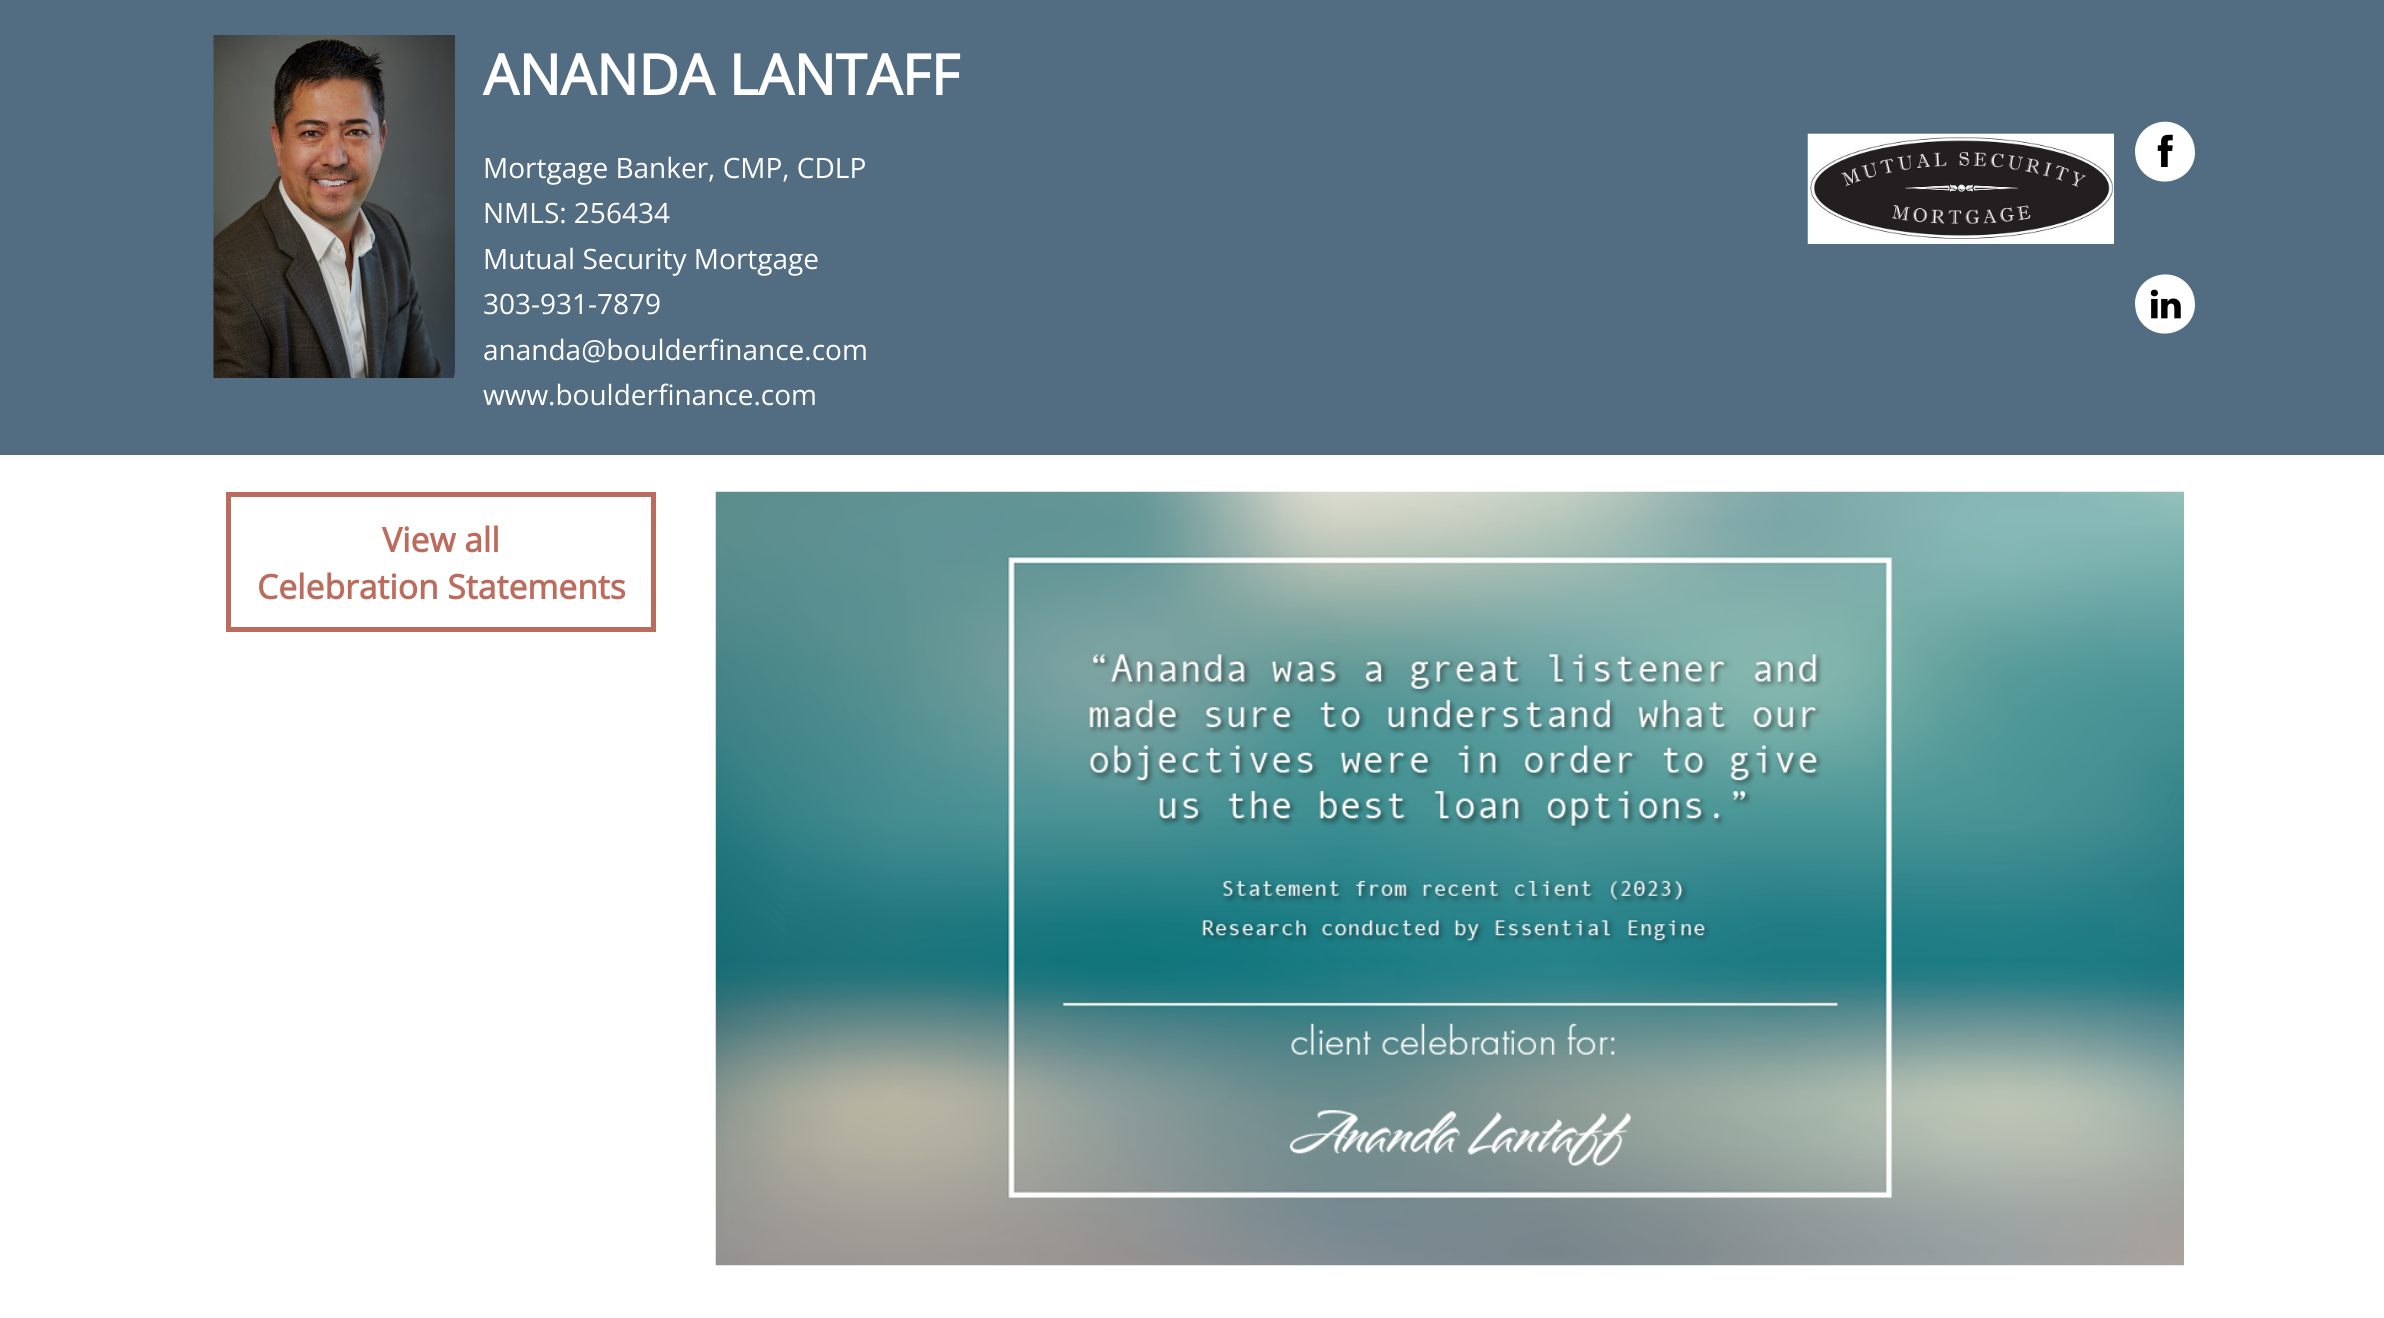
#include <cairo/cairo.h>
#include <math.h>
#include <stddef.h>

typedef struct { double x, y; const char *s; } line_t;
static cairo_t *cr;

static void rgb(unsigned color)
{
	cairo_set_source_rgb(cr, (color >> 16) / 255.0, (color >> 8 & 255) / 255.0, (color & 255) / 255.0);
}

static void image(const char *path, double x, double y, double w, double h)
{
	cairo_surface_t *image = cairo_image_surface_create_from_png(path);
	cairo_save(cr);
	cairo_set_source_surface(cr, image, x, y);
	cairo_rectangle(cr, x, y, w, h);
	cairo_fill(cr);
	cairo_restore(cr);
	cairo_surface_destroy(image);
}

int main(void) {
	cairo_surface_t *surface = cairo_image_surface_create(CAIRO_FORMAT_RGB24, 2384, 1318);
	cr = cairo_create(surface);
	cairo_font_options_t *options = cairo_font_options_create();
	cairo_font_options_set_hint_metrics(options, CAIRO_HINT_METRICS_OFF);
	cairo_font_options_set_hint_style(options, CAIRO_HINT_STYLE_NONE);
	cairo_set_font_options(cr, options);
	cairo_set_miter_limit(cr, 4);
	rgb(0xffffff);
	cairo_paint(cr);
	rgb(0x526c82);
	cairo_rectangle(cr, 0, 0, 2384, 455);
	cairo_fill(cr);
	image("img/1.png", 213, 35, 242, 343);
	image("img/2.png", 1807, 133, 307, 111);
	rgb(0xffffff);
	cairo_new_path(cr);
	cairo_move_to(cr, 2191, 137);
	cairo_curve_to(cr, 2194, 142, 2195, 148, 2195, 154);
	cairo_curve_to(cr, 2193, 183, 2154, 192, 2139, 167);
	cairo_curve_to(cr, 2136, 162, 2135, 156, 2135, 150);
	cairo_curve_to(cr, 2137, 120, 2176, 111, 2191, 137);
	cairo_close_path(cr);
	cairo_fill(cr);
	image("img/3.png", 2157, 134, 16, 33);
	cairo_new_path(cr);
	cairo_move_to(cr, 2191, 289);
	cairo_curve_to(cr, 2194, 294, 2195, 300, 2195, 306);
	cairo_curve_to(cr, 2193, 335, 2154, 344, 2139, 319);
	cairo_curve_to(cr, 2136, 314, 2135, 308, 2135, 302);
	cairo_curve_to(cr, 2137, 273, 2176, 264, 2191, 289);
	cairo_close_path(cr);
	cairo_fill(cr);
	image("img/4.png", 2150, 289, 31, 30);
	cairo_rectangle(cr, 228.5, 494.5, 425, 135);
	rgb(0xbc6c5c);
	cairo_set_line_width(cr, 5);
	cairo_stroke(cr);
	image("img/5.png", 715, 491, 1469, 775);
	cairo_select_font_face(cr, "Open Sans", CAIRO_FONT_SLANT_NORMAL, CAIRO_FONT_WEIGHT_BOLD);
	cairo_set_font_size(cr, 56);
	rgb(0xffffff);
	cairo_move_to(cr, 483, 95);
	cairo_show_text(cr, "ANANDA LANTAFF");
	cairo_select_font_face(cr, "Open Sans", CAIRO_FONT_SLANT_NORMAL, CAIRO_FONT_WEIGHT_NORMAL);
	cairo_set_font_size(cr, 28);
	{
		static const line_t items[] = {
			{483, 178, "Mortgage Banker, CMP, CDLP"},
			{483, 223, "NMLS: 256434"},
			{483, 269, "Mutual Security Mortgage"},
			{483, 314, "303-931-7879"},
			{483, 360, "ananda@boulderfinance.com"},
			{483, 405, "www.boulderfinance.com"},
		};
		for (size_t i = 0; i < sizeof items / sizeof *items; i++) {
			cairo_move_to(cr, items[i].x, items[i].y);
			cairo_show_text(cr, items[i].s);
		}
	}
	cairo_select_font_face(cr, "Open Sans", CAIRO_FONT_SLANT_NORMAL, CAIRO_FONT_WEIGHT_BOLD);
	cairo_set_font_size(cr, 33.6);
	rgb(0xbc6c5c);
	cairo_move_to(cr, 382, 552);
	cairo_show_text(cr, "View all");
	cairo_move_to(cr, 257, 599);
	cairo_show_text(cr, "Celebration Statements");
	cairo_surface_write_to_png(surface, "page.png");
	cairo_font_options_destroy(options);
	cairo_destroy(cr);
	cairo_surface_destroy(surface);
	return 0;
}
